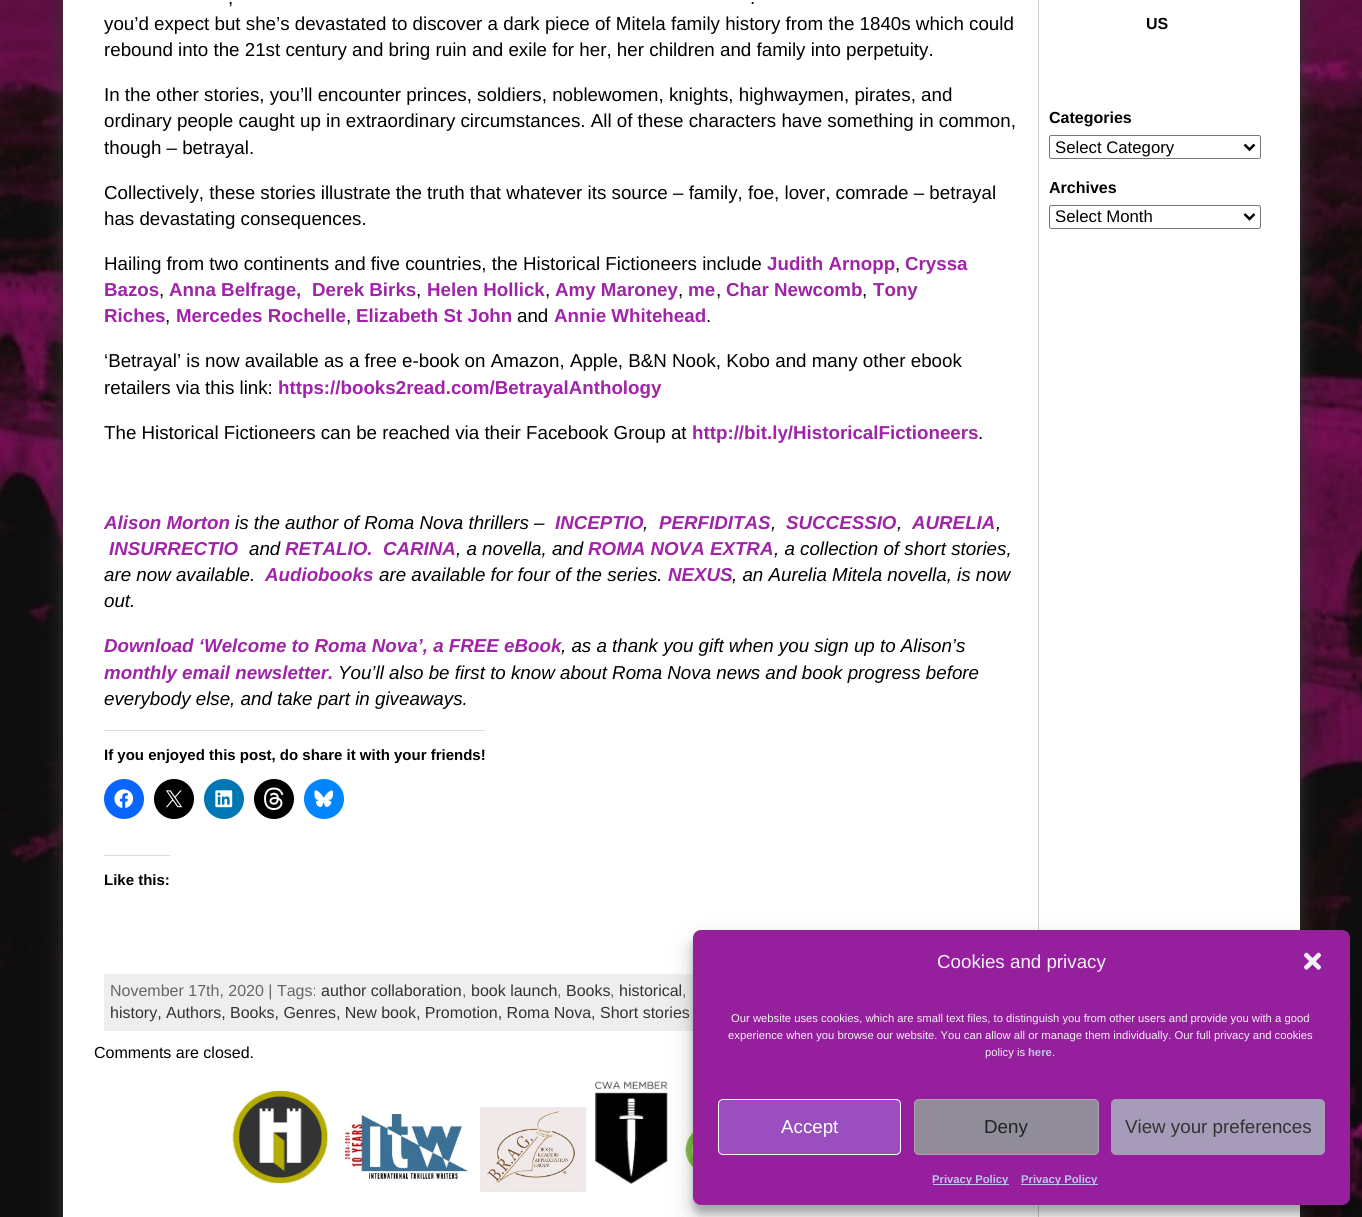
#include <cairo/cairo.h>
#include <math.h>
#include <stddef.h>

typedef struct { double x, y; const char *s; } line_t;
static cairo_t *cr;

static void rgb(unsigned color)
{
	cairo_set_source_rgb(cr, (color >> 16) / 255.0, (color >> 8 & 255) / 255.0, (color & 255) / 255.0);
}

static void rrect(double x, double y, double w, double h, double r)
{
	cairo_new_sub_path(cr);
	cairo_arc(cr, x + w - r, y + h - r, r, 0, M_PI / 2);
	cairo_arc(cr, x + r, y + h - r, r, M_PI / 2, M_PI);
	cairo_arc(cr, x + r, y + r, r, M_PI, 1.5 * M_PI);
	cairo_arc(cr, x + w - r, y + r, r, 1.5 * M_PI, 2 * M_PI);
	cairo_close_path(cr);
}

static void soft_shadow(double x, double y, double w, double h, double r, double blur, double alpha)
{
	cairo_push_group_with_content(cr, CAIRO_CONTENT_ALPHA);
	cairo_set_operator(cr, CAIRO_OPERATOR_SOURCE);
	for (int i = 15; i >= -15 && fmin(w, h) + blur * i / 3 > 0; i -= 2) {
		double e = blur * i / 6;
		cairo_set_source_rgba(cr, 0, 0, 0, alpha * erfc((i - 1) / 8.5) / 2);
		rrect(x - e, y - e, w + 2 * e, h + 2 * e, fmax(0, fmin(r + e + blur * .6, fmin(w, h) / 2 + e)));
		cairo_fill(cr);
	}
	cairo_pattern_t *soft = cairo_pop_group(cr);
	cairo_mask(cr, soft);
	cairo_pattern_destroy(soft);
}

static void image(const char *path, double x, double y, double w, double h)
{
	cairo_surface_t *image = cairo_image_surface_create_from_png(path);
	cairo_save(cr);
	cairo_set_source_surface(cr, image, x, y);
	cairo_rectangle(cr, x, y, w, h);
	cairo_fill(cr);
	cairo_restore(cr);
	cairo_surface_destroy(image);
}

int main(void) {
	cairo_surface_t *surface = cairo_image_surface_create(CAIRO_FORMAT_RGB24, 1362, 1217);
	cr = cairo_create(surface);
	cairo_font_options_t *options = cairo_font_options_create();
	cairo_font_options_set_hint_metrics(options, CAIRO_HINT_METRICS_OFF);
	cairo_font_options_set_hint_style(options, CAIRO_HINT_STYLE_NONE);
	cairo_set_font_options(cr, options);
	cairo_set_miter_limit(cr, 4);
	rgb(0xffffff);
	cairo_paint(cr);
	image("img/1.png", 0, 0, 1362, 1217);
	rgb(0x333333);
	soft_shadow(63, -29, 1237, 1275, 0, 9.5, 1);
	rgb(0xffffff);
	cairo_rectangle(cr, 63, 0, 1237, 1217);
	cairo_fill(cr);
	rgb(0xdcdcde);
	cairo_rectangle(cr, 104, 730, 381, 1);
	cairo_fill(cr);
	rgb(0x0866ff);
	cairo_arc(cr, 124, 799, 20, 0, 2 * M_PI);
	cairo_fill(cr);
	image("img/2.png", 114, 789, 20, 19);
	rgb(0x000000);
	cairo_arc(cr, 174, 799, 20, 0, 2 * M_PI);
	cairo_fill(cr);
	image("img/3.png", 165, 790, 18, 18);
	rgb(0x0077b5);
	cairo_arc(cr, 224, 799, 20, 0, 2 * M_PI);
	cairo_fill(cr);
	image("img/4.png", 215, 790, 18, 18);
	rgb(0x000000);
	cairo_arc(cr, 274, 799, 20, 0, 2 * M_PI);
	cairo_fill(cr);
	image("img/5.png", 264, 787, 20, 23);
	rgb(0x0085ff);
	cairo_arc(cr, 324, 799, 20, 0, 2 * M_PI);
	cairo_fill(cr);
	image("img/6.png", 314, 790, 20, 17);
	rgb(0xdcdcde);
	cairo_rectangle(cr, 104, 855, 66, 1);
	cairo_fill(cr);
	rgb(0xeeeeee);
	cairo_rectangle(cr, 104, 974, 589, 57);
	cairo_fill(cr);
	image("img/7.png", 232, 1090, 96, 94);
	image("img/8.png", 336, 1110, 133, 73);
	image("img/9.png", 480, 1107, 107, 85);
	image("img/10.png", 594, 1081, 75, 104);
	image("img/11.png", 682, 1112, 11, 75);
	rgb(0xcccccc);
	cairo_rectangle(cr, 1038, 0, 1, 1217);
	cairo_fill(cr);
	rrect(1049.5, 135.5, 211, 23, 2);
	rgb(0x767676);
	cairo_set_line_width(cr, 1);
	cairo_stroke(cr);
	cairo_new_path(cr);
	cairo_move_to(cr, 1244.5, 144.5);
	cairo_line_to(cr, 1249.5, 149.5);
	cairo_line_to(cr, 1254.5, 144.5);
	rgb(0x000000);
	cairo_set_line_width(cr, 2.5);
	cairo_stroke(cr);
	rrect(1049.5, 205.5, 211, 23, 2);
	rgb(0x767676);
	cairo_set_line_width(cr, 1);
	cairo_stroke(cr);
	cairo_new_path(cr);
	cairo_move_to(cr, 1244.5, 214);
	cairo_line_to(cr, 1249.5, 219);
	cairo_line_to(cr, 1254.5, 214);
	rgb(0x000000);
	cairo_set_line_width(cr, 2.5);
	cairo_stroke(cr);
	rgb(0x000000);
	soft_shadow(693, 938, 657, 275, 8, 4, 0.23);
	soft_shadow(693, 943, 657, 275, 8, 12.5, 0.19);
	rgb(0x961f9e);
	rrect(693, 930, 657, 275, 8);
	cairo_fill(cr);
	image("img/12.png", 1303, 952, 19, 18);
	rgb(0x9b4ebf);
	rrect(718.5, 1099.5, 182, 55, 4.5);
	cairo_fill_preserve(cr);
	rgb(0xfcfeff);
	cairo_set_line_width(cr, 1);
	cairo_stroke(cr);
	rgb(0x918c9a);
	rrect(914.5, 1099.5, 184, 55, 4.5);
	cairo_fill_preserve(cr);
	rgb(0xaaa7b1);
	cairo_stroke(cr);
	rgb(0xa69bb9);
	rrect(1111.5, 1099.5, 213, 55, 4.5);
	cairo_fill_preserve(cr);
	cairo_stroke(cr);
	rgb(0xbdc4ec);
	cairo_rectangle(cr, 933, 1184, 76, 1);
	cairo_fill(cr);
	cairo_rectangle(cr, 1021, 1184, 77, 1);
	cairo_fill(cr);
	cairo_select_font_face(cr, "Liberation Sans", CAIRO_FONT_SLANT_NORMAL, CAIRO_FONT_WEIGHT_NORMAL);
	cairo_set_font_size(cr, 18.75);
	rgb(0x000000);
	{
		static const line_t items[] = {
			{228, 4, ","},
			{750, 4, "."},
			{104, 30, "you’d expect but she’s devastated to discover a dark piece of Mitela family history from the 1840s which could"},
			{104, 56, "rebound into the 21st century and bring ruin and exile for her, her children and family into perpetuity."},
			{104, 101, "In the other stories, you’ll encounter princes, soldiers, noblewomen, knights, highwaymen, pirates, and"},
			{104, 127, "ordinary people caught up in extraordinary circumstances. All of these characters have something in common,"},
			{104, 154, "though – betrayal."},
			{104, 199, "Collectively, these stories illustrate the truth that whatever its source – family, foe, lover, comrade – betrayal"},
			{104, 225, "has devastating consequences."},
			{104, 270, "Hailing from two continents and five countries, the Historical Fictioneers include"},
		};
		for (size_t i = 0; i < sizeof items / sizeof *items; i++) {
			cairo_move_to(cr, items[i].x, items[i].y);
			cairo_show_text(cr, items[i].s);
		}
	}
	cairo_select_font_face(cr, "Liberation Sans", CAIRO_FONT_SLANT_NORMAL, CAIRO_FONT_WEIGHT_BOLD);
	rgb(0x9f24a8);
	cairo_move_to(cr, 767, 270);
	cairo_show_text(cr, "Judith Arnopp");
	cairo_select_font_face(cr, "Liberation Sans", CAIRO_FONT_SLANT_NORMAL, CAIRO_FONT_WEIGHT_NORMAL);
	rgb(0x000000);
	cairo_move_to(cr, 895, 270);
	cairo_show_text(cr, ",");
	cairo_select_font_face(cr, "Liberation Sans", CAIRO_FONT_SLANT_NORMAL, CAIRO_FONT_WEIGHT_BOLD);
	rgb(0x9f24a8);
	cairo_move_to(cr, 905, 270);
	cairo_show_text(cr, "Cryssa");
	cairo_move_to(cr, 104, 296);
	cairo_show_text(cr, "Bazos");
	cairo_select_font_face(cr, "Liberation Sans", CAIRO_FONT_SLANT_NORMAL, CAIRO_FONT_WEIGHT_NORMAL);
	rgb(0x000000);
	cairo_move_to(cr, 159, 296);
	cairo_show_text(cr, ",");
	cairo_select_font_face(cr, "Liberation Sans", CAIRO_FONT_SLANT_NORMAL, CAIRO_FONT_WEIGHT_BOLD);
	rgb(0x9f24a8);
	cairo_move_to(cr, 169, 296);
	cairo_show_text(cr, "Anna Belfrage,");
	cairo_move_to(cr, 312, 296);
	cairo_show_text(cr, "Derek Birks");
	cairo_select_font_face(cr, "Liberation Sans", CAIRO_FONT_SLANT_NORMAL, CAIRO_FONT_WEIGHT_NORMAL);
	rgb(0x000000);
	cairo_move_to(cr, 416, 296);
	cairo_show_text(cr, ",");
	cairo_select_font_face(cr, "Liberation Sans", CAIRO_FONT_SLANT_NORMAL, CAIRO_FONT_WEIGHT_BOLD);
	rgb(0x9f24a8);
	cairo_move_to(cr, 427, 296);
	cairo_show_text(cr, "Helen Hollick");
	cairo_select_font_face(cr, "Liberation Sans", CAIRO_FONT_SLANT_NORMAL, CAIRO_FONT_WEIGHT_NORMAL);
	rgb(0x000000);
	cairo_move_to(cr, 545, 296);
	cairo_show_text(cr, ",");
	cairo_select_font_face(cr, "Liberation Sans", CAIRO_FONT_SLANT_NORMAL, CAIRO_FONT_WEIGHT_BOLD);
	rgb(0x9f24a8);
	cairo_move_to(cr, 555, 296);
	cairo_show_text(cr, "Amy Maroney");
	cairo_select_font_face(cr, "Liberation Sans", CAIRO_FONT_SLANT_NORMAL, CAIRO_FONT_WEIGHT_NORMAL);
	rgb(0x000000);
	cairo_move_to(cr, 678, 296);
	cairo_show_text(cr, ",");
	cairo_select_font_face(cr, "Liberation Sans", CAIRO_FONT_SLANT_NORMAL, CAIRO_FONT_WEIGHT_BOLD);
	rgb(0x9f24a8);
	cairo_move_to(cr, 688, 296);
	cairo_show_text(cr, "me");
	cairo_select_font_face(cr, "Liberation Sans", CAIRO_FONT_SLANT_NORMAL, CAIRO_FONT_WEIGHT_NORMAL);
	rgb(0x000000);
	cairo_move_to(cr, 716, 296);
	cairo_show_text(cr, ",");
	cairo_select_font_face(cr, "Liberation Sans", CAIRO_FONT_SLANT_NORMAL, CAIRO_FONT_WEIGHT_BOLD);
	rgb(0x9f24a8);
	cairo_move_to(cr, 726, 296);
	cairo_show_text(cr, "Char Newcomb");
	cairo_select_font_face(cr, "Liberation Sans", CAIRO_FONT_SLANT_NORMAL, CAIRO_FONT_WEIGHT_NORMAL);
	rgb(0x000000);
	cairo_move_to(cr, 862, 296);
	cairo_show_text(cr, ",");
	cairo_select_font_face(cr, "Liberation Sans", CAIRO_FONT_SLANT_NORMAL, CAIRO_FONT_WEIGHT_BOLD);
	rgb(0x9f24a8);
	cairo_move_to(cr, 873, 296);
	cairo_show_text(cr, "Tony");
	cairo_move_to(cr, 104, 322);
	cairo_show_text(cr, "Riches");
	cairo_select_font_face(cr, "Liberation Sans", CAIRO_FONT_SLANT_NORMAL, CAIRO_FONT_WEIGHT_NORMAL);
	rgb(0x000000);
	cairo_move_to(cr, 165, 322);
	cairo_show_text(cr, ",");
	cairo_select_font_face(cr, "Liberation Sans", CAIRO_FONT_SLANT_NORMAL, CAIRO_FONT_WEIGHT_BOLD);
	rgb(0x9f24a8);
	cairo_move_to(cr, 176, 322);
	cairo_show_text(cr, "Mercedes Rochelle");
	cairo_select_font_face(cr, "Liberation Sans", CAIRO_FONT_SLANT_NORMAL, CAIRO_FONT_WEIGHT_NORMAL);
	rgb(0x000000);
	cairo_move_to(cr, 346, 322);
	cairo_show_text(cr, ",");
	cairo_select_font_face(cr, "Liberation Sans", CAIRO_FONT_SLANT_NORMAL, CAIRO_FONT_WEIGHT_BOLD);
	rgb(0x9f24a8);
	cairo_move_to(cr, 356, 322);
	cairo_show_text(cr, "Elizabeth St John");
	cairo_select_font_face(cr, "Liberation Sans", CAIRO_FONT_SLANT_NORMAL, CAIRO_FONT_WEIGHT_NORMAL);
	rgb(0x000000);
	cairo_move_to(cr, 517, 322);
	cairo_show_text(cr, "and");
	cairo_select_font_face(cr, "Liberation Sans", CAIRO_FONT_SLANT_NORMAL, CAIRO_FONT_WEIGHT_BOLD);
	rgb(0x9f24a8);
	cairo_move_to(cr, 554, 322);
	cairo_show_text(cr, "Annie Whitehead");
	cairo_select_font_face(cr, "Liberation Sans", CAIRO_FONT_SLANT_NORMAL, CAIRO_FONT_WEIGHT_NORMAL);
	rgb(0x000000);
	{
		static const line_t items[] = {
			{706, 322, "."},
			{104, 367, "‘Betrayal’ is now available as a free e-book on Amazon, Apple, B&N Nook, Kobo and many other ebook"},
			{104, 394, "retailers via this link:"},
		};
		for (size_t i = 0; i < sizeof items / sizeof *items; i++) {
			cairo_move_to(cr, items[i].x, items[i].y);
			cairo_show_text(cr, items[i].s);
		}
	}
	cairo_select_font_face(cr, "Liberation Sans", CAIRO_FONT_SLANT_NORMAL, CAIRO_FONT_WEIGHT_BOLD);
	rgb(0x9f24a8);
	cairo_move_to(cr, 278, 394);
	cairo_show_text(cr, "https://books2read.com/BetrayalAnthology");
	cairo_select_font_face(cr, "Liberation Sans", CAIRO_FONT_SLANT_NORMAL, CAIRO_FONT_WEIGHT_NORMAL);
	rgb(0x000000);
	cairo_move_to(cr, 104, 439);
	cairo_show_text(cr, "The Historical Fictioneers can be reached via their Facebook Group at");
	cairo_select_font_face(cr, "Liberation Sans", CAIRO_FONT_SLANT_NORMAL, CAIRO_FONT_WEIGHT_BOLD);
	rgb(0x9f24a8);
	cairo_move_to(cr, 692, 439);
	cairo_show_text(cr, "http://bit.ly/HistoricalFictioneers");
	cairo_select_font_face(cr, "Liberation Sans", CAIRO_FONT_SLANT_NORMAL, CAIRO_FONT_WEIGHT_NORMAL);
	rgb(0x000000);
	cairo_move_to(cr, 978, 439);
	cairo_show_text(cr, ".");
	cairo_select_font_face(cr, "Liberation Sans", CAIRO_FONT_SLANT_ITALIC, CAIRO_FONT_WEIGHT_BOLD);
	rgb(0x9f24a8);
	cairo_move_to(cr, 104, 529);
	cairo_show_text(cr, "Alison Morton");
	cairo_select_font_face(cr, "Liberation Sans", CAIRO_FONT_SLANT_ITALIC, CAIRO_FONT_WEIGHT_NORMAL);
	rgb(0x000000);
	cairo_move_to(cr, 235, 529);
	cairo_show_text(cr, "is the author of Roma Nova thrillers –");
	cairo_select_font_face(cr, "Liberation Sans", CAIRO_FONT_SLANT_ITALIC, CAIRO_FONT_WEIGHT_BOLD);
	rgb(0x9f24a8);
	cairo_move_to(cr, 555, 529);
	cairo_show_text(cr, "INCEPTIO");
	cairo_select_font_face(cr, "Liberation Sans", CAIRO_FONT_SLANT_ITALIC, CAIRO_FONT_WEIGHT_NORMAL);
	rgb(0x000000);
	cairo_move_to(cr, 643, 529);
	cairo_show_text(cr, ",");
	cairo_select_font_face(cr, "Liberation Sans", CAIRO_FONT_SLANT_ITALIC, CAIRO_FONT_WEIGHT_BOLD);
	rgb(0x9f24a8);
	cairo_move_to(cr, 659, 529);
	cairo_show_text(cr, "PERFIDITAS");
	cairo_select_font_face(cr, "Liberation Sans", CAIRO_FONT_SLANT_ITALIC, CAIRO_FONT_WEIGHT_NORMAL);
	rgb(0x000000);
	cairo_move_to(cr, 771, 529);
	cairo_show_text(cr, ",");
	cairo_select_font_face(cr, "Liberation Sans", CAIRO_FONT_SLANT_ITALIC, CAIRO_FONT_WEIGHT_BOLD);
	rgb(0x9f24a8);
	cairo_move_to(cr, 786, 529);
	cairo_show_text(cr, "SUCCESSIO");
	cairo_select_font_face(cr, "Liberation Sans", CAIRO_FONT_SLANT_ITALIC, CAIRO_FONT_WEIGHT_NORMAL);
	rgb(0x000000);
	cairo_move_to(cr, 897, 529);
	cairo_show_text(cr, ",");
	cairo_select_font_face(cr, "Liberation Sans", CAIRO_FONT_SLANT_ITALIC, CAIRO_FONT_WEIGHT_BOLD);
	rgb(0x9f24a8);
	cairo_move_to(cr, 912, 529);
	cairo_show_text(cr, "AURELIA");
	cairo_select_font_face(cr, "Liberation Sans", CAIRO_FONT_SLANT_ITALIC, CAIRO_FONT_WEIGHT_NORMAL);
	rgb(0x000000);
	cairo_move_to(cr, 996, 529);
	cairo_show_text(cr, ",");
	cairo_select_font_face(cr, "Liberation Sans", CAIRO_FONT_SLANT_ITALIC, CAIRO_FONT_WEIGHT_BOLD);
	rgb(0x9f24a8);
	cairo_move_to(cr, 109, 555);
	cairo_show_text(cr, "INSURRECTIO");
	cairo_select_font_face(cr, "Liberation Sans", CAIRO_FONT_SLANT_ITALIC, CAIRO_FONT_WEIGHT_NORMAL);
	rgb(0x000000);
	cairo_move_to(cr, 249, 555);
	cairo_show_text(cr, "and");
	cairo_select_font_face(cr, "Liberation Sans", CAIRO_FONT_SLANT_ITALIC, CAIRO_FONT_WEIGHT_BOLD);
	rgb(0x9f24a8);
	cairo_move_to(cr, 285, 555);
	cairo_show_text(cr, "RETALIO.");
	cairo_move_to(cr, 383, 555);
	cairo_show_text(cr, "CARINA");
	cairo_select_font_face(cr, "Liberation Sans", CAIRO_FONT_SLANT_ITALIC, CAIRO_FONT_WEIGHT_NORMAL);
	rgb(0x000000);
	cairo_move_to(cr, 456, 555);
	cairo_show_text(cr, ", a novella, and");
	cairo_select_font_face(cr, "Liberation Sans", CAIRO_FONT_SLANT_ITALIC, CAIRO_FONT_WEIGHT_BOLD);
	rgb(0x9f24a8);
	cairo_move_to(cr, 588, 555);
	cairo_show_text(cr, "ROMA NOVA EXTRA");
	cairo_select_font_face(cr, "Liberation Sans", CAIRO_FONT_SLANT_ITALIC, CAIRO_FONT_WEIGHT_NORMAL);
	rgb(0x000000);
	cairo_move_to(cr, 774, 555);
	cairo_show_text(cr, ", a collection of short stories,");
	cairo_move_to(cr, 104, 581);
	cairo_show_text(cr, "are now available.");
	cairo_select_font_face(cr, "Liberation Sans", CAIRO_FONT_SLANT_ITALIC, CAIRO_FONT_WEIGHT_BOLD);
	rgb(0x9f24a8);
	cairo_move_to(cr, 265, 581);
	cairo_show_text(cr, "Audiobooks");
	cairo_select_font_face(cr, "Liberation Sans", CAIRO_FONT_SLANT_ITALIC, CAIRO_FONT_WEIGHT_NORMAL);
	rgb(0x000000);
	cairo_move_to(cr, 379, 581);
	cairo_show_text(cr, "are available for four of the series.");
	cairo_select_font_face(cr, "Liberation Sans", CAIRO_FONT_SLANT_ITALIC, CAIRO_FONT_WEIGHT_BOLD);
	rgb(0x9f24a8);
	cairo_move_to(cr, 668, 581);
	cairo_show_text(cr, "NEXUS");
	cairo_select_font_face(cr, "Liberation Sans", CAIRO_FONT_SLANT_ITALIC, CAIRO_FONT_WEIGHT_NORMAL);
	rgb(0x000000);
	cairo_move_to(cr, 732, 581);
	cairo_show_text(cr, ", an Aurelia Mitela novella, is now");
	cairo_move_to(cr, 104, 607);
	cairo_show_text(cr, "out.");
	cairo_select_font_face(cr, "Liberation Sans", CAIRO_FONT_SLANT_ITALIC, CAIRO_FONT_WEIGHT_BOLD);
	rgb(0x9f24a8);
	cairo_move_to(cr, 104, 652);
	cairo_show_text(cr, "Download ‘Welcome to Roma Nova’, a FREE eBook");
	cairo_select_font_face(cr, "Liberation Sans", CAIRO_FONT_SLANT_ITALIC, CAIRO_FONT_WEIGHT_NORMAL);
	rgb(0x000000);
	cairo_move_to(cr, 561, 652);
	cairo_show_text(cr, ", as a thank you gift when you sign up to Alison’s");
	cairo_select_font_face(cr, "Liberation Sans", CAIRO_FONT_SLANT_ITALIC, CAIRO_FONT_WEIGHT_BOLD);
	rgb(0x9f24a8);
	cairo_move_to(cr, 104, 679);
	cairo_show_text(cr, "monthly email newsletter.");
	cairo_select_font_face(cr, "Liberation Sans", CAIRO_FONT_SLANT_ITALIC, CAIRO_FONT_WEIGHT_NORMAL);
	rgb(0x000000);
	cairo_move_to(cr, 338, 679);
	cairo_show_text(cr, "You’ll also be first to know about Roma Nova news and book progress before");
	cairo_move_to(cr, 104, 705);
	cairo_show_text(cr, "everybody else, and take part in giveaways.");
	cairo_select_font_face(cr, "Liberation Sans", CAIRO_FONT_SLANT_NORMAL, CAIRO_FONT_WEIGHT_BOLD);
	cairo_set_font_size(cr, 15);
	cairo_move_to(cr, 104, 760);
	cairo_show_text(cr, "If you enjoyed this post, do share it with your friends!");
	cairo_move_to(cr, 104, 885);
	cairo_show_text(cr, "Like this:");
	cairo_select_font_face(cr, "Liberation Sans", CAIRO_FONT_SLANT_NORMAL, CAIRO_FONT_WEIGHT_NORMAL);
	cairo_set_font_size(cr, 16);
	rgb(0x666666);
	cairo_move_to(cr, 110, 996);
	cairo_show_text(cr, "November 17th, 2020 | Tags:");
	rgb(0x333333);
	cairo_move_to(cr, 321, 996);
	cairo_show_text(cr, "author collaboration");
	rgb(0x666666);
	cairo_move_to(cr, 462, 996);
	cairo_show_text(cr, ",");
	rgb(0x333333);
	cairo_move_to(cr, 471, 996);
	cairo_show_text(cr, "book launch");
	rgb(0x666666);
	cairo_move_to(cr, 557, 996);
	cairo_show_text(cr, ",");
	rgb(0x333333);
	cairo_move_to(cr, 566, 996);
	cairo_show_text(cr, "Books");
	rgb(0x666666);
	cairo_move_to(cr, 610, 996);
	cairo_show_text(cr, ",");
	rgb(0x333333);
	cairo_move_to(cr, 619, 996);
	cairo_show_text(cr, "historical");
	rgb(0x666666);
	cairo_move_to(cr, 682, 996);
	cairo_show_text(cr, ",");
	rgb(0x333333);
	cairo_move_to(cr, 110, 1018);
	cairo_show_text(cr, "history, Authors, Books, Genres, New book, Promotion, Roma Nova, Short stories");
	rgb(0x000000);
	cairo_move_to(cr, 94, 1058);
	cairo_show_text(cr, "Comments are closed.");
	cairo_select_font_face(cr, "Liberation Sans", CAIRO_FONT_SLANT_NORMAL, CAIRO_FONT_WEIGHT_BOLD);
	cairo_move_to(cr, 1146, 29);
	cairo_show_text(cr, "US");
	cairo_move_to(cr, 1049, 123);
	cairo_show_text(cr, "Categories");
	cairo_select_font_face(cr, "Liberation Sans", CAIRO_FONT_SLANT_NORMAL, CAIRO_FONT_WEIGHT_NORMAL);
	cairo_set_font_size(cr, 16.75);
	cairo_move_to(cr, 1055, 153);
	cairo_show_text(cr, "Select Category");
	cairo_select_font_face(cr, "Liberation Sans", CAIRO_FONT_SLANT_NORMAL, CAIRO_FONT_WEIGHT_BOLD);
	cairo_set_font_size(cr, 16);
	cairo_move_to(cr, 1049, 193);
	cairo_show_text(cr, "Archives");
	cairo_select_font_face(cr, "Liberation Sans", CAIRO_FONT_SLANT_NORMAL, CAIRO_FONT_WEIGHT_NORMAL);
	cairo_set_font_size(cr, 16.75);
	cairo_move_to(cr, 1055, 222);
	cairo_show_text(cr, "Select Month");
	cairo_set_font_size(cr, 18.75);
	rgb(0xf3f2f5);
	cairo_move_to(cr, 937, 968);
	cairo_show_text(cr, "Cookies and privacy");
	cairo_set_font_size(cr, 11.25);
	{
		static const line_t items[] = {
			{731, 1022, "Our website uses cookies, which are small text files, to distinguish you from other users and provide you with a good"},
			{728, 1039, "experience when you browse our website. You can allow all or manage them individually. Our full privacy and cookies"},
			{985, 1056, "policy is"},
		};
		for (size_t i = 0; i < sizeof items / sizeof *items; i++) {
			cairo_move_to(cr, items[i].x, items[i].y);
			cairo_show_text(cr, items[i].s);
		}
	}
	cairo_select_font_face(cr, "Liberation Sans", CAIRO_FONT_SLANT_NORMAL, CAIRO_FONT_WEIGHT_BOLD);
	rgb(0xbdc4ec);
	cairo_move_to(cr, 1028, 1056);
	cairo_show_text(cr, "here");
	cairo_select_font_face(cr, "Liberation Sans", CAIRO_FONT_SLANT_NORMAL, CAIRO_FONT_WEIGHT_NORMAL);
	rgb(0xf3f2f5);
	cairo_move_to(cr, 1052, 1056);
	cairo_show_text(cr, ".");
	cairo_set_font_size(cr, 18.75);
	rgb(0xffffff);
	cairo_move_to(cr, 781, 1133);
	cairo_show_text(cr, "Accept");
	rgb(0x222222);
	cairo_move_to(cr, 984, 1133);
	cairo_show_text(cr, "Deny");
	rgb(0x333333);
	cairo_move_to(cr, 1125, 1133);
	cairo_show_text(cr, "View your preferences");
	cairo_select_font_face(cr, "Liberation Sans", CAIRO_FONT_SLANT_NORMAL, CAIRO_FONT_WEIGHT_BOLD);
	cairo_set_font_size(cr, 11.25);
	rgb(0xbdc4ec);
	cairo_move_to(cr, 932, 1183);
	cairo_show_text(cr, "Privacy Policy");
	cairo_move_to(cr, 1021, 1183);
	cairo_show_text(cr, "Privacy Policy");
	cairo_surface_write_to_png(surface, "page.png");
	cairo_font_options_destroy(options);
	cairo_destroy(cr);
	cairo_surface_destroy(surface);
	return 0;
}
